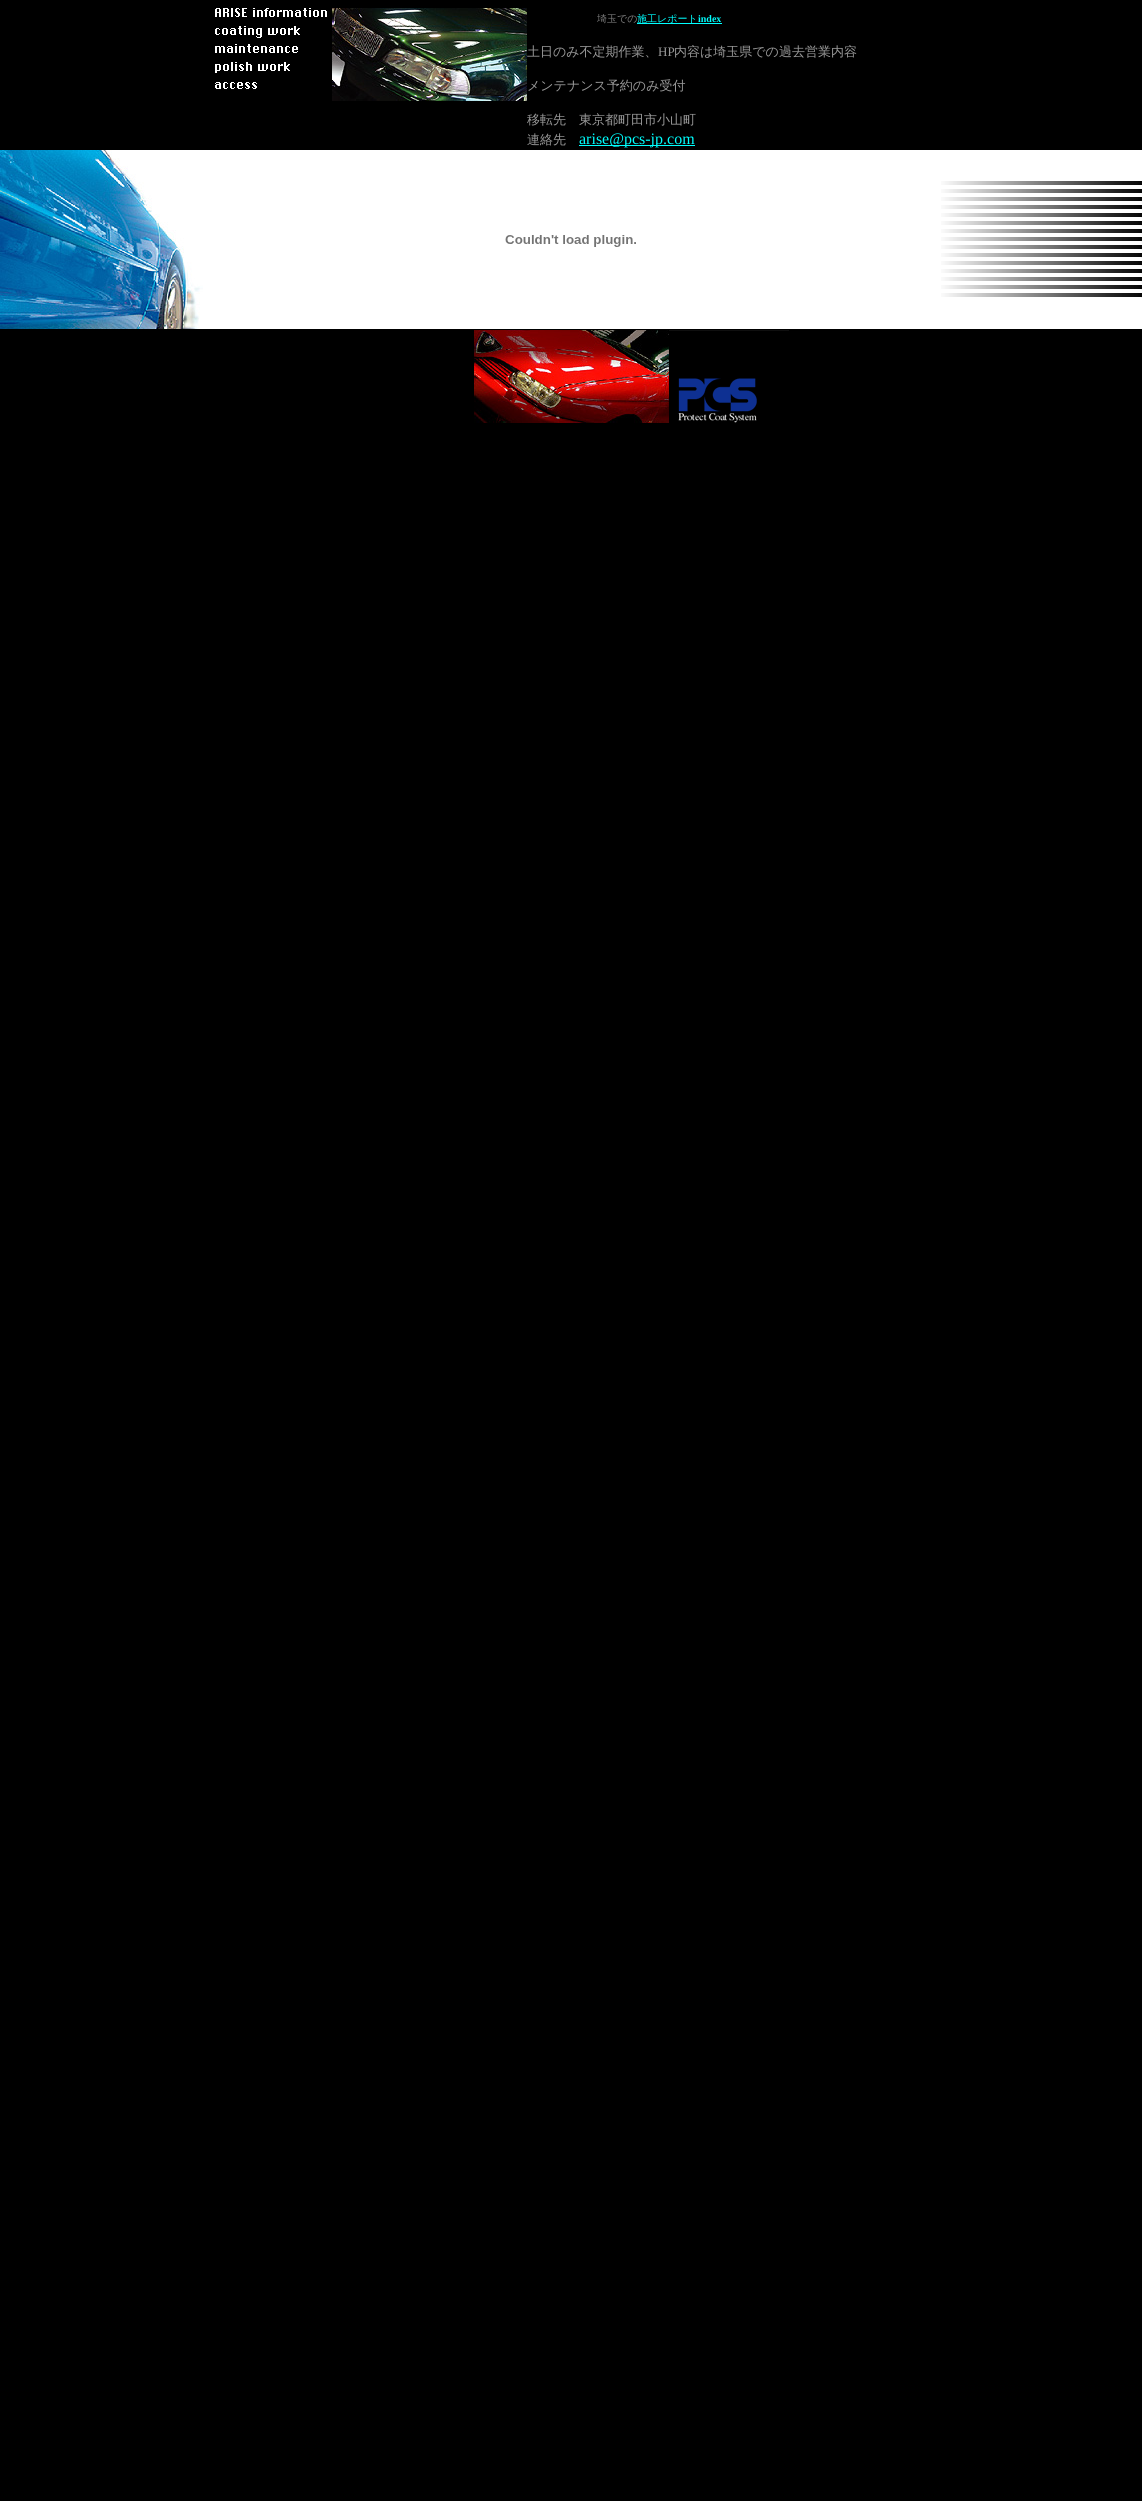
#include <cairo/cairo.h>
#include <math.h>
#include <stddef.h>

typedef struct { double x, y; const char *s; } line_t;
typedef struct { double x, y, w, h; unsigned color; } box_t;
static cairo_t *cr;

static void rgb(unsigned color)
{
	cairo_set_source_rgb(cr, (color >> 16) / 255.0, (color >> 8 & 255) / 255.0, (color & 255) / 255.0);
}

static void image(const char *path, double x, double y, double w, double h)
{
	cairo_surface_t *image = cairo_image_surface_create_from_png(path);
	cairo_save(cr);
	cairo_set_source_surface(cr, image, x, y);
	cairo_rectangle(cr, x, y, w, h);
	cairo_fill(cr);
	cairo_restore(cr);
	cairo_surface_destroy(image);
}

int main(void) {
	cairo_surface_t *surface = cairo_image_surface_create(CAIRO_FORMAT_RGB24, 1142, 2501);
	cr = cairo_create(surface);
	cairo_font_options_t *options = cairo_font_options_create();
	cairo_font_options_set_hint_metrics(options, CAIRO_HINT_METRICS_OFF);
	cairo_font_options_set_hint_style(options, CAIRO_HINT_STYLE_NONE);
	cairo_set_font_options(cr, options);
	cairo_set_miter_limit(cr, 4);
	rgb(0x000000);
	cairo_paint(cr);
	image("img/1.png", 215, 8, 112, 9);
	image("img/2.png", 215, 26, 85, 12);
	image("img/3.png", 215, 44, 83, 9);
	image("img/4.png", 215, 62, 75, 11);
	image("img/5.png", 215, 82, 42, 7);
	image("img/6.png", 332, 8, 195, 93);
	{
		static const box_t items[] = {
			{637, 23, 85, 1, 0x00ffff},
			{579, 145, 116, 1, 0x00ffff},
			{203, 150, 939, 179, 0xffffff},
		};
		for (size_t i = 0; i < sizeof items / sizeof *items; i++) {
			rgb(items[i].color);
			cairo_rectangle(cr, items[i].x, items[i].y, items[i].w, items[i].h);
			cairo_fill(cr);
		}
	}
	image("img/7.png", 0, 150, 203, 179);
	image("img/8.png", 505, 235, 131, 12);
	image("img/9.png", 941, 181, 201, 117);
	image("img/10.png", 474, 330, 195, 93);
	image("img/11.png", 669, 330, 120, 93);
	cairo_select_font_face(cr, "WenQuanYi Zen Hei Medium", CAIRO_FONT_SLANT_NORMAL, CAIRO_FONT_WEIGHT_NORMAL);
	cairo_set_font_size(cr, 10);
	rgb(0x808080);
	cairo_move_to(cr, 597, 22);
	cairo_show_text(cr, "埼玉での");
	rgb(0x00ffff);
	cairo_move_to(cr, 637, 22);
	cairo_show_text(cr, "施工レポート");
	cairo_select_font_face(cr, "Liberation Serif", CAIRO_FONT_SLANT_NORMAL, CAIRO_FONT_WEIGHT_BOLD);
	cairo_move_to(cr, 698, 22);
	cairo_show_text(cr, "index");
	cairo_select_font_face(cr, "WenQuanYi Zen Hei Medium", CAIRO_FONT_SLANT_NORMAL, CAIRO_FONT_WEIGHT_NORMAL);
	cairo_set_font_size(cr, 13);
	rgb(0x999999);
	cairo_move_to(cr, 527, 56);
	cairo_show_text(cr, "土日のみ不定期作業、");
	cairo_select_font_face(cr, "Liberation Serif", CAIRO_FONT_SLANT_NORMAL, CAIRO_FONT_WEIGHT_NORMAL);
	cairo_move_to(cr, 658, 56);
	cairo_show_text(cr, "HP");
	cairo_select_font_face(cr, "WenQuanYi Zen Hei Medium", CAIRO_FONT_SLANT_NORMAL, CAIRO_FONT_WEIGHT_NORMAL);
	{
		static const line_t items[] = {
			{674, 56, "内容は埼玉県での過去営業内容"},
			{527, 90, "メンテナンス予約のみ受付"},
			{527, 124, "移転先　東京都町田市小山町"},
			{527, 144, "連絡先"},
		};
		for (size_t i = 0; i < sizeof items / sizeof *items; i++) {
			cairo_move_to(cr, items[i].x, items[i].y);
			cairo_show_text(cr, items[i].s);
		}
	}
	cairo_select_font_face(cr, "Liberation Serif", CAIRO_FONT_SLANT_NORMAL, CAIRO_FONT_WEIGHT_NORMAL);
	cairo_set_font_size(cr, 16);
	rgb(0x00ffff);
	cairo_move_to(cr, 579, 144);
	cairo_show_text(cr, "arise@pcs-jp.com");
	cairo_surface_write_to_png(surface, "page.png");
	cairo_font_options_destroy(options);
	cairo_destroy(cr);
	cairo_surface_destroy(surface);
	return 0;
}
